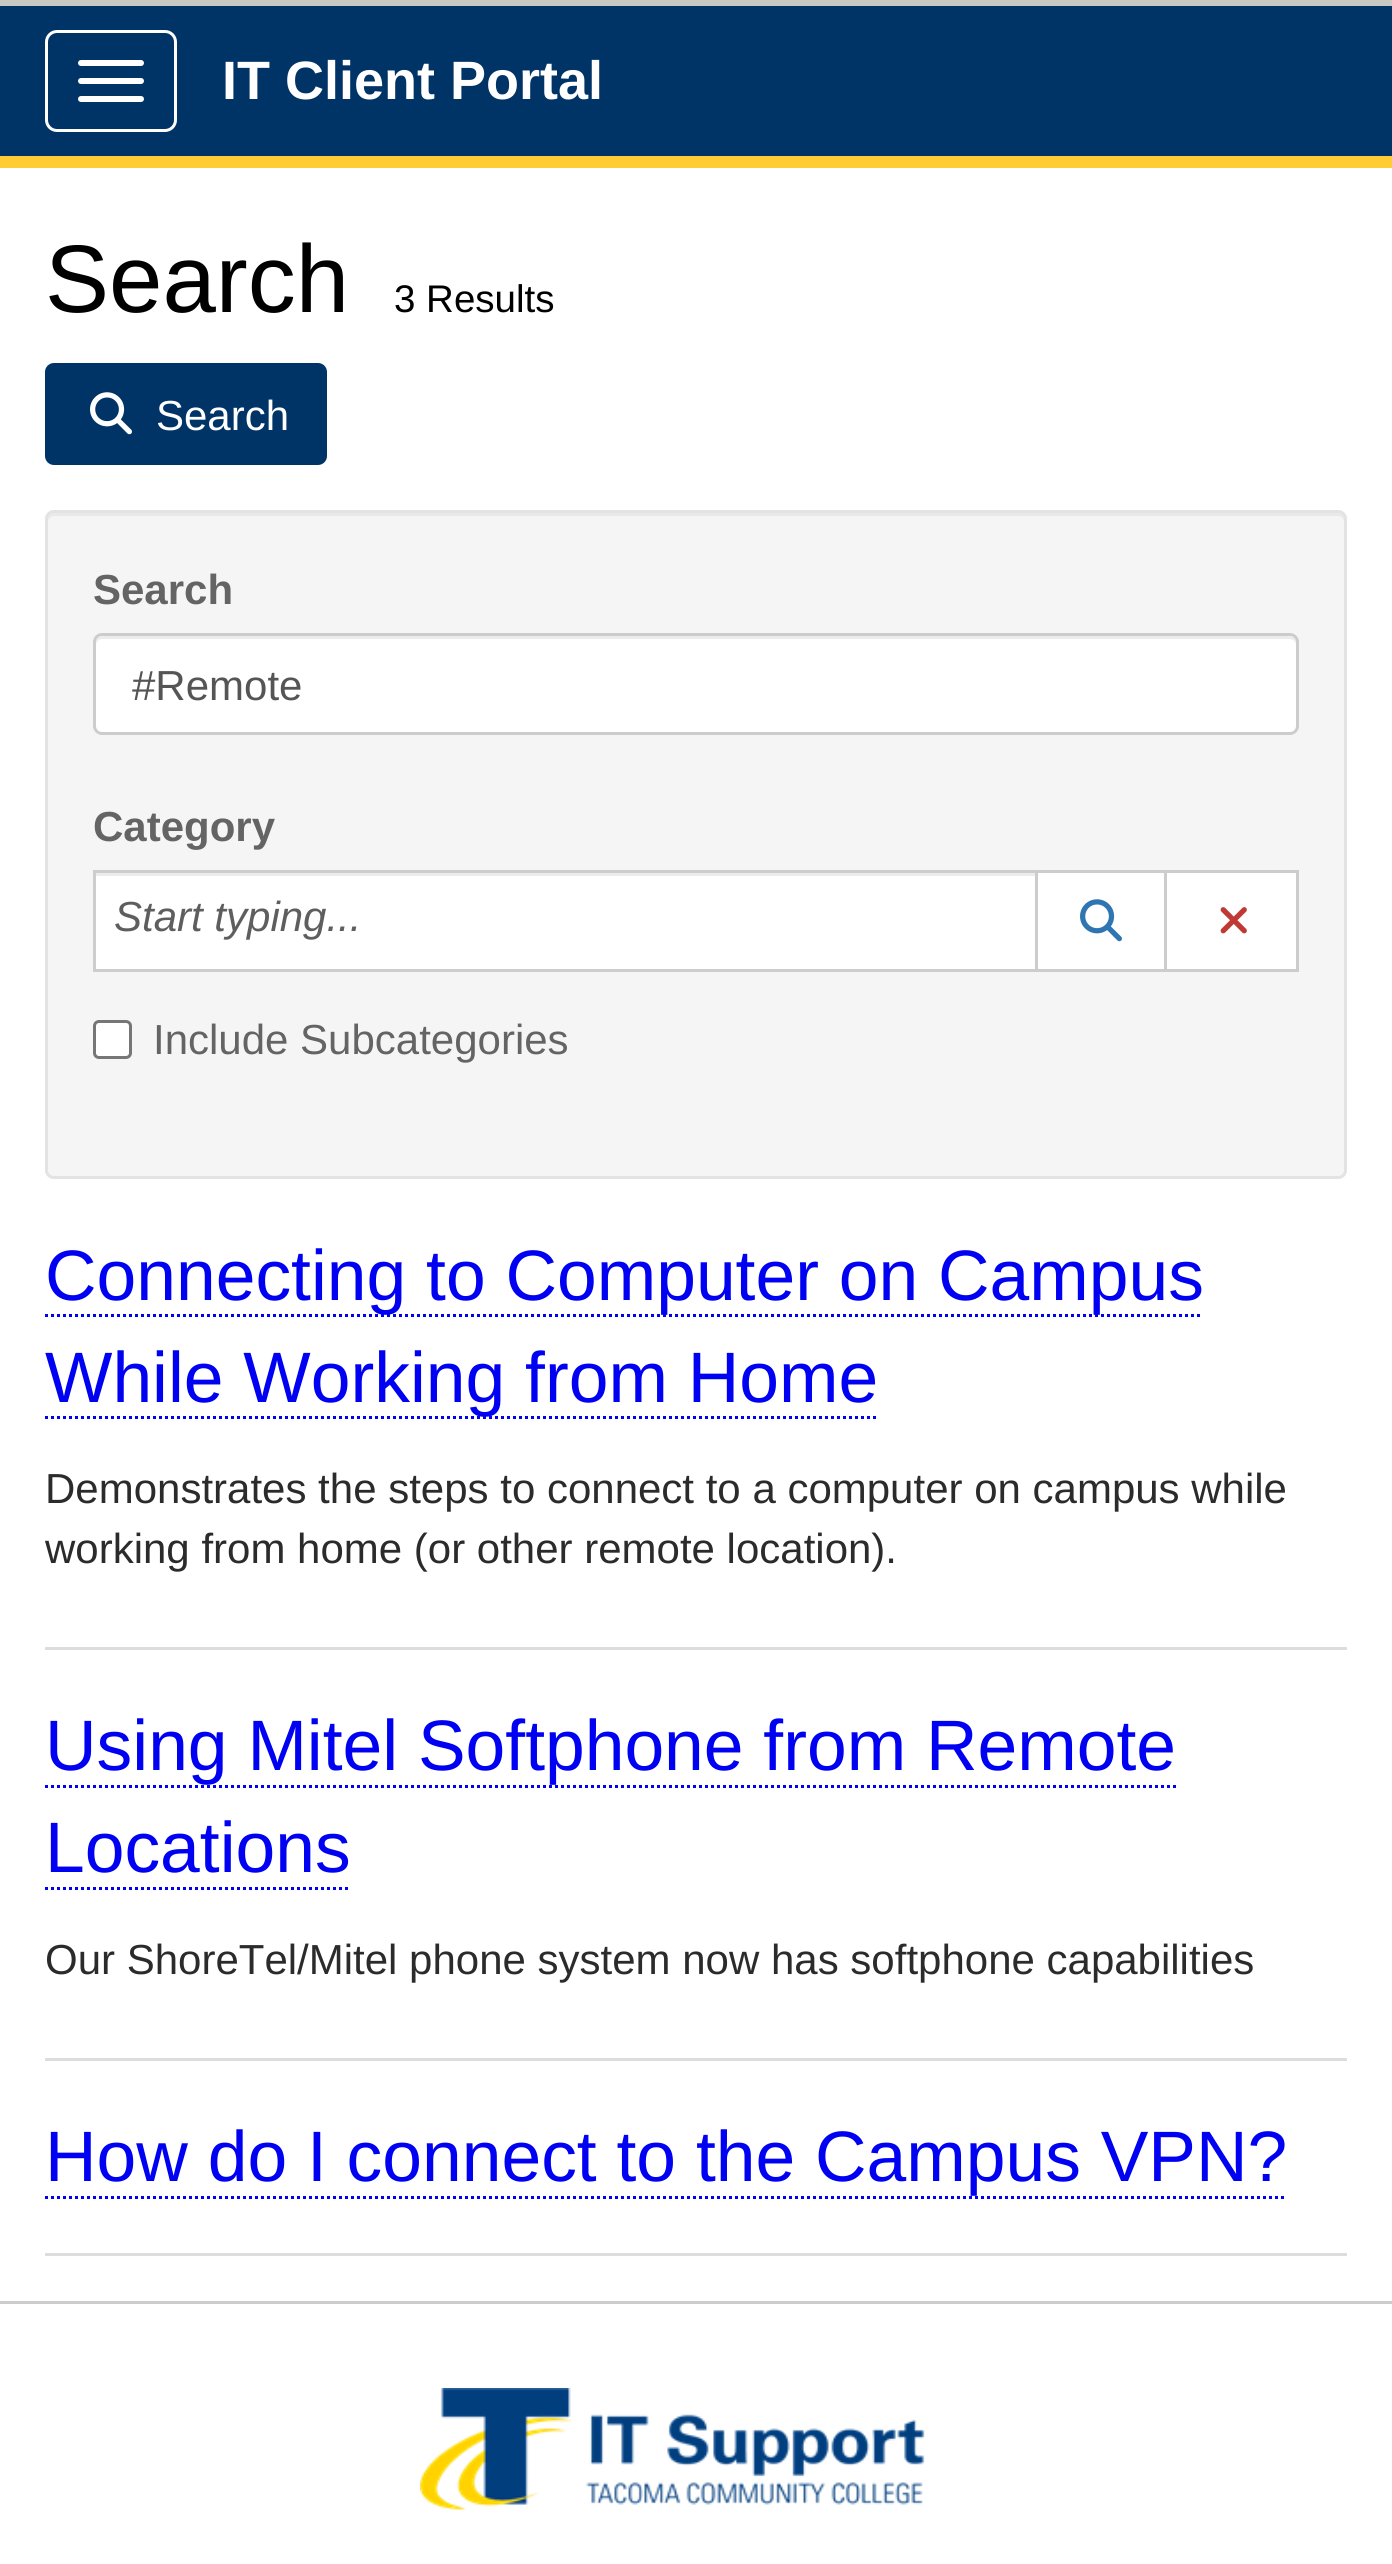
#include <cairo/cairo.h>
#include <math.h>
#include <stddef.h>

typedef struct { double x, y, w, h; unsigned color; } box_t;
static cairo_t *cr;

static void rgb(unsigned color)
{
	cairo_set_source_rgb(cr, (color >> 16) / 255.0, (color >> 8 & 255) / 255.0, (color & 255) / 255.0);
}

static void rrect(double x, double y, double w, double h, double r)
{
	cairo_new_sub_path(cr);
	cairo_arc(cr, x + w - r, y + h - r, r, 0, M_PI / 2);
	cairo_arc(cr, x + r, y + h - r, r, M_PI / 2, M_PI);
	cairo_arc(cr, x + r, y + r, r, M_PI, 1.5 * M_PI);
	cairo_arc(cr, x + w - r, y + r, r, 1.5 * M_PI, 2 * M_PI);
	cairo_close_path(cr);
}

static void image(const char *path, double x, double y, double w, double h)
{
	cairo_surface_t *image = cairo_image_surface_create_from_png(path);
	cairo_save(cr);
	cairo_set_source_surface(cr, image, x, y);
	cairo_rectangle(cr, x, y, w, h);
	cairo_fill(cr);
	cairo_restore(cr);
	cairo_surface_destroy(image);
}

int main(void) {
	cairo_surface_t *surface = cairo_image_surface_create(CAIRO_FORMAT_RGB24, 1392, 2564);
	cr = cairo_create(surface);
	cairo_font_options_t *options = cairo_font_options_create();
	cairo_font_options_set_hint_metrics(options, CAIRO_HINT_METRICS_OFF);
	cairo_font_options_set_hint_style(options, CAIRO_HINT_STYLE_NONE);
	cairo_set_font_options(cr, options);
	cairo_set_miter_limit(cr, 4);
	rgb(0xffffff);
	cairo_paint(cr);
	{
		static const box_t items[] = {
			{0, 6, 1392, 150, 0x003366},
			{0, 0, 1392, 6, 0xc9c9c4},
			{0, 156, 1392, 12, 0xffcc33},
		};
		for (size_t i = 0; i < sizeof items / sizeof *items; i++) {
			rgb(items[i].color);
			cairo_rectangle(cr, items[i].x, items[i].y, items[i].w, items[i].h);
			cairo_fill(cr);
		}
	}
	rrect(46.5, 31.5, 129, 99, 10.5);
	rgb(0xffffff);
	cairo_set_line_width(cr, 3);
	cairo_stroke(cr);
	rrect(78, 60, 66, 6, 3);
	cairo_fill(cr);
	rrect(78, 78, 66, 6, 3);
	cairo_fill(cr);
	rrect(78, 96, 66, 6, 3);
	cairo_fill(cr);
	rgb(0x003366);
	rrect(46.5, 364.5, 279, 99, 7.5);
	cairo_fill_preserve(cr);
	cairo_stroke(cr);
	image("img/1.png", 90, 392, 42, 43);
	rgb(0xf5f5f5);
	rrect(45, 510, 1302, 669, 9);
	cairo_fill(cr);
	rgb(0xe9e9e9);
	cairo_new_path(cr);
	cairo_move_to(cr, 54, 516);
	cairo_line_to(cr, 1338, 516);
	cairo_curve_to(cr, 1341, 516, 1344, 519, 1344, 522);
	cairo_line_to(cr, 1344, 519);
	cairo_curve_to(cr, 1344, 516, 1341, 513, 1338, 513);
	cairo_line_to(cr, 54, 513);
	cairo_curve_to(cr, 51, 513, 48, 516, 48, 519);
	cairo_line_to(cr, 48, 522);
	cairo_curve_to(cr, 48, 519, 51, 516, 54, 516);
	cairo_close_path(cr);
	cairo_fill(cr);
	rrect(46.5, 511.5, 1299, 666, 7.5);
	rgb(0xe3e3e3);
	cairo_stroke(cr);
	rgb(0xffffff);
	rrect(93, 633, 1206, 102, 9);
	cairo_fill(cr);
	rgb(0xececec);
	cairo_new_path(cr);
	cairo_move_to(cr, 102, 639);
	cairo_line_to(cr, 1290, 639);
	cairo_curve_to(cr, 1293, 639, 1296, 642, 1296, 645);
	cairo_line_to(cr, 1296, 642);
	cairo_curve_to(cr, 1296, 639, 1293, 636, 1290, 636);
	cairo_line_to(cr, 102, 636);
	cairo_curve_to(cr, 99, 636, 96, 639, 96, 642);
	cairo_line_to(cr, 96, 645);
	cairo_curve_to(cr, 96, 642, 99, 639, 102, 639);
	cairo_close_path(cr);
	cairo_fill(cr);
	rrect(94.5, 634.5, 1203, 99, 7.5);
	rgb(0xcccccc);
	cairo_stroke(cr);
	rgb(0xffffff);
	cairo_rectangle(cr, 96, 876, 939, 93);
	cairo_fill(cr);
	rgb(0xececec);
	cairo_rectangle(cr, 96, 873, 939, 3);
	cairo_fill(cr);
	cairo_rectangle(cr, 94.5, 871.5, 942, 99);
	rgb(0xcdcdcd);
	cairo_stroke(cr);
	rgb(0xffffff);
	cairo_rectangle(cr, 1036.5, 871.5, 129, 99);
	cairo_fill_preserve(cr);
	rgb(0xcccccc);
	cairo_stroke(cr);
	image("img/2.png", 1080, 899, 42, 43);
	rgb(0xffffff);
	cairo_rectangle(cr, 1165.5, 871.5, 132, 99);
	cairo_fill_preserve(cr);
	rgb(0xcccccc);
	cairo_stroke(cr);
	image("img/3.png", 1220, 907, 27, 27);
	rgb(0xffffff);
	rrect(94.5, 1021.5, 36, 36, 4.5);
	cairo_fill_preserve(cr);
	rgb(0x767676);
	cairo_stroke(cr);
	rgb(0xdddddd);
	cairo_rectangle(cr, 45, 1647, 1302, 3);
	cairo_fill(cr);
	cairo_new_path(cr);
	cairo_move_to(cr, 45, 1315.5);
	cairo_line_to(cr, 1203, 1315.5);
	rgb(0x0000f2);
	cairo_set_dash(cr, (double[]){3, 3}, 2, 0);
	cairo_stroke(cr);
	cairo_new_path(cr);
	cairo_move_to(cr, 45, 1417.5);
	cairo_line_to(cr, 879, 1417.5);
	cairo_stroke(cr);
	rgb(0xdddddd);
	cairo_rectangle(cr, 45, 2058, 1302, 3);
	cairo_fill(cr);
	cairo_new_path(cr);
	cairo_move_to(cr, 45, 1786.5);
	cairo_line_to(cr, 1176, 1786.5);
	rgb(0x0000f2);
	cairo_stroke(cr);
	cairo_new_path(cr);
	cairo_move_to(cr, 45, 1888.5);
	cairo_line_to(cr, 351, 1888.5);
	cairo_stroke(cr);
	rgb(0xdddddd);
	cairo_rectangle(cr, 45, 2253, 1302, 3);
	cairo_fill(cr);
	cairo_new_path(cr);
	cairo_move_to(cr, 45, 2197.5);
	cairo_line_to(cr, 1287, 2197.5);
	rgb(0x0000f2);
	cairo_stroke(cr);
	rgb(0xcccccc);
	cairo_rectangle(cr, 0, 2301, 1392, 3);
	cairo_fill(cr);
	image("img/4.png", 420, 2388, 505, 123);
	cairo_select_font_face(cr, "Liberation Sans", CAIRO_FONT_SLANT_NORMAL, CAIRO_FONT_WEIGHT_BOLD);
	cairo_set_font_size(cr, 54);
	rgb(0xffffff);
	cairo_move_to(cr, 222, 99);
	cairo_show_text(cr, "IT Client Portal");
	cairo_select_font_face(cr, "Liberation Sans", CAIRO_FONT_SLANT_NORMAL, CAIRO_FONT_WEIGHT_NORMAL);
	cairo_set_font_size(cr, 96);
	rgb(0x000000);
	cairo_move_to(cr, 45, 312);
	cairo_show_text(cr, "Search");
	cairo_set_font_size(cr, 38.5);
	cairo_move_to(cr, 394, 312);
	cairo_show_text(cr, "3 Results");
	cairo_set_font_size(cr, 42);
	rgb(0xffffff);
	cairo_move_to(cr, 156, 430);
	cairo_show_text(cr, "Search");
	cairo_select_font_face(cr, "Liberation Sans", CAIRO_FONT_SLANT_NORMAL, CAIRO_FONT_WEIGHT_BOLD);
	rgb(0x646464);
	cairo_move_to(cr, 93, 604);
	cairo_show_text(cr, "Search");
	cairo_select_font_face(cr, "Liberation Sans", CAIRO_FONT_SLANT_NORMAL, CAIRO_FONT_WEIGHT_NORMAL);
	rgb(0x555555);
	cairo_move_to(cr, 132, 700);
	cairo_show_text(cr, "#Remote");
	cairo_select_font_face(cr, "Liberation Sans", CAIRO_FONT_SLANT_NORMAL, CAIRO_FONT_WEIGHT_BOLD);
	rgb(0x646464);
	cairo_move_to(cr, 93, 841);
	cairo_show_text(cr, "Category");
	cairo_select_font_face(cr, "Liberation Sans", CAIRO_FONT_SLANT_ITALIC, CAIRO_FONT_WEIGHT_NORMAL);
	rgb(0x5e5e5e);
	cairo_move_to(cr, 114, 931);
	cairo_show_text(cr, "Start typing...");
	cairo_select_font_face(cr, "Liberation Sans", CAIRO_FONT_SLANT_NORMAL, CAIRO_FONT_WEIGHT_NORMAL);
	rgb(0x646464);
	cairo_move_to(cr, 153, 1054);
	cairo_show_text(cr, "Include Subcategories");
	cairo_set_font_size(cr, 71.4);
	rgb(0x0000f2);
	cairo_move_to(cr, 45, 1300);
	cairo_show_text(cr, "Connecting to Computer on Campus");
	cairo_move_to(cr, 45, 1402);
	cairo_show_text(cr, "While Working from Home");
	cairo_set_font_size(cr, 42);
	rgb(0x2b2b2b);
	cairo_move_to(cr, 45, 1503);
	cairo_show_text(cr, "Demonstrates the steps to connect to a computer on campus while");
	cairo_move_to(cr, 45, 1563);
	cairo_show_text(cr, "working from home (or other remote location).");
	cairo_set_font_size(cr, 71.4);
	rgb(0x0000f2);
	cairo_move_to(cr, 45, 1770);
	cairo_show_text(cr, "Using Mitel Softphone from Remote");
	cairo_move_to(cr, 45, 1872);
	cairo_show_text(cr, "Locations");
	cairo_set_font_size(cr, 42);
	rgb(0x2b2b2b);
	cairo_move_to(cr, 45, 1974);
	cairo_show_text(cr, "Our ShoreTel/Mitel phone system now has softphone capabilities");
	cairo_set_font_size(cr, 71.4);
	rgb(0x0000f2);
	cairo_move_to(cr, 45, 2181);
	cairo_show_text(cr, "How do I connect to the Campus VPN?");
	cairo_surface_write_to_png(surface, "page.png");
	cairo_font_options_destroy(options);
	cairo_destroy(cr);
	cairo_surface_destroy(surface);
	return 0;
}
